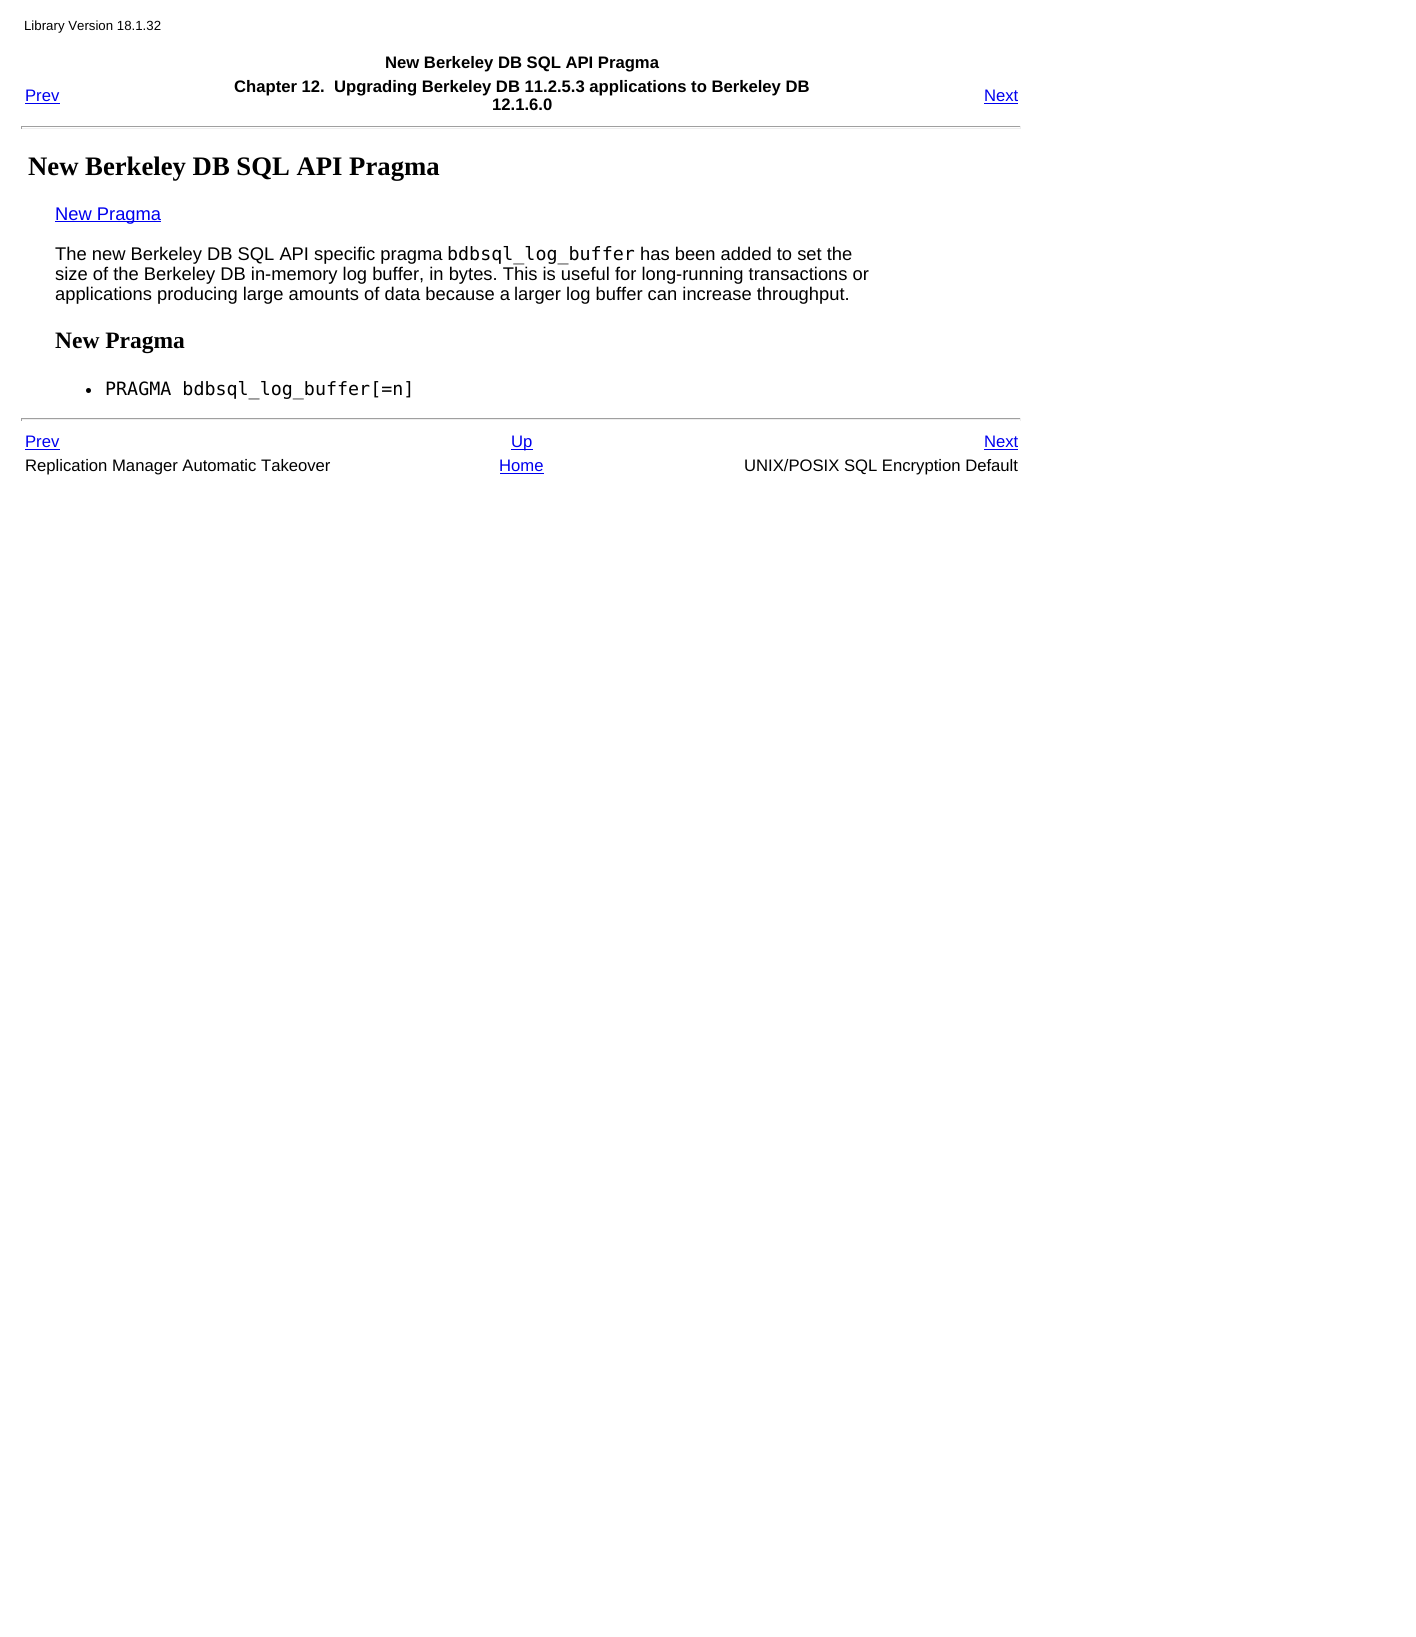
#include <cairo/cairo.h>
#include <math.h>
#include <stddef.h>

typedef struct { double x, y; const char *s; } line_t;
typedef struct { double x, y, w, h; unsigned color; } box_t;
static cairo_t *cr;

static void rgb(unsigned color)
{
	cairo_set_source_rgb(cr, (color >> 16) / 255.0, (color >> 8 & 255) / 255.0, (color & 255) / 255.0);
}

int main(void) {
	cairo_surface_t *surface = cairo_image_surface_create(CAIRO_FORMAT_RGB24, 1416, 1637);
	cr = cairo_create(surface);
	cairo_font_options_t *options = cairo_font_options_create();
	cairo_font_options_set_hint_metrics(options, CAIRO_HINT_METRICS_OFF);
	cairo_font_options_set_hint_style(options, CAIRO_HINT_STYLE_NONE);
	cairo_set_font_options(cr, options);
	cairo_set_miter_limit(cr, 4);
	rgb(0xffffff);
	cairo_paint(cr);
	{
		static const box_t items[] = {
			{25, 103, 35, 1, 0x0000ee},
			{984, 103, 34, 1, 0x0000ee},
			{21, 126, 1000, 1, 0x9f9f9f},
			{1020, 126, 1, 3, 0xeeeeee},
			{21, 128, 1000, 1, 0xeeeeee},
			{21, 126, 1, 3, 0x9f9f9f},
			{55, 221, 106, 1, 0x0000ee},
		};
		for (size_t i = 0; i < sizeof items / sizeof *items; i++) {
			rgb(items[i].color);
			cairo_rectangle(cr, items[i].x, items[i].y, items[i].w, items[i].h);
			cairo_fill(cr);
		}
	}
	rgb(0x000000);
	cairo_arc(cr, 88.5, 390.5, 2.5, 0, 2 * M_PI);
	cairo_fill(cr);
	{
		static const box_t items[] = {
			{21, 418, 1000, 1, 0x9f9f9f},
			{1020, 418, 1, 3, 0xeeeeee},
			{21, 419, 1000, 1, 0xeeeeee},
			{21, 418, 1, 3, 0x9f9f9f},
			{25, 449, 35, 1, 0x0000ee},
			{511, 449, 22, 1, 0x0000ee},
			{984, 449, 34, 1, 0x0000ee},
			{500, 473, 44, 1, 0x0000ee},
		};
		for (size_t i = 0; i < sizeof items / sizeof *items; i++) {
			rgb(items[i].color);
			cairo_rectangle(cr, items[i].x, items[i].y, items[i].w, items[i].h);
			cairo_fill(cr);
		}
	}
	cairo_select_font_face(cr, "Liberation Sans", CAIRO_FONT_SLANT_NORMAL, CAIRO_FONT_WEIGHT_NORMAL);
	cairo_set_font_size(cr, 13.25);
	rgb(0x000000);
	cairo_move_to(cr, 24, 30);
	cairo_show_text(cr, "Library Version 18.1.32");
	cairo_select_font_face(cr, "Liberation Sans", CAIRO_FONT_SLANT_NORMAL, CAIRO_FONT_WEIGHT_BOLD);
	cairo_set_font_size(cr, 16.65);
	cairo_move_to(cr, 385, 68);
	cairo_show_text(cr, "New Berkeley DB SQL API Pragma");
	cairo_select_font_face(cr, "Liberation Sans", CAIRO_FONT_SLANT_NORMAL, CAIRO_FONT_WEIGHT_NORMAL);
	rgb(0x0000ee);
	cairo_move_to(cr, 25, 101);
	cairo_show_text(cr, "Prev");
	cairo_select_font_face(cr, "Liberation Sans", CAIRO_FONT_SLANT_NORMAL, CAIRO_FONT_WEIGHT_BOLD);
	rgb(0x000000);
	cairo_move_to(cr, 234, 92);
	cairo_show_text(cr, "Chapter 12.  Upgrading Berkeley DB 11.2.5.3 applications to Berkeley DB");
	cairo_move_to(cr, 492, 110);
	cairo_show_text(cr, "12.1.6.0");
	cairo_select_font_face(cr, "Liberation Sans", CAIRO_FONT_SLANT_NORMAL, CAIRO_FONT_WEIGHT_NORMAL);
	rgb(0x0000ee);
	cairo_move_to(cr, 984, 101);
	cairo_show_text(cr, "Next");
	cairo_select_font_face(cr, "Liberation Serif", CAIRO_FONT_SLANT_NORMAL, CAIRO_FONT_WEIGHT_BOLD);
	cairo_set_font_size(cr, 26.7);
	rgb(0x000000);
	cairo_move_to(cr, 28, 175);
	cairo_show_text(cr, "New Berkeley DB SQL API Pragma");
	cairo_select_font_face(cr, "Liberation Sans", CAIRO_FONT_SLANT_NORMAL, CAIRO_FONT_WEIGHT_NORMAL);
	cairo_set_font_size(cr, 18.35);
	rgb(0x0000ee);
	cairo_move_to(cr, 55, 220);
	cairo_show_text(cr, "New Pragma");
	rgb(0x000000);
	cairo_move_to(cr, 55, 260);
	cairo_show_text(cr, "The new Berkeley DB SQL API specific pragma");
	cairo_select_font_face(cr, "DejaVu Sans Mono", CAIRO_FONT_SLANT_NORMAL, CAIRO_FONT_WEIGHT_NORMAL);
	cairo_move_to(cr, 447, 260);
	cairo_show_text(cr, "bdbsql_log_buffer");
	cairo_select_font_face(cr, "Liberation Sans", CAIRO_FONT_SLANT_NORMAL, CAIRO_FONT_WEIGHT_NORMAL);
	{
		static const line_t items[] = {
			{640, 260, "has been added to set the"},
			{55, 280, "size of the Berkeley DB in-memory log buffer, in bytes. This is useful for long-running transactions or"},
			{55, 300, "applications producing large amounts of data because a"},
			{514, 300, "larger log buffer can increase throughput."},
		};
		for (size_t i = 0; i < sizeof items / sizeof *items; i++) {
			cairo_move_to(cr, items[i].x, items[i].y);
			cairo_show_text(cr, items[i].s);
		}
	}
	cairo_select_font_face(cr, "Liberation Serif", CAIRO_FONT_SLANT_NORMAL, CAIRO_FONT_WEIGHT_BOLD);
	cairo_set_font_size(cr, 23.5);
	cairo_move_to(cr, 55, 348);
	cairo_show_text(cr, "New Pragma");
	cairo_select_font_face(cr, "DejaVu Sans Mono", CAIRO_FONT_SLANT_NORMAL, CAIRO_FONT_WEIGHT_NORMAL);
	cairo_set_font_size(cr, 18.35);
	cairo_move_to(cr, 105, 395);
	cairo_show_text(cr, "PRAGMA bdbsql_log_buffer[=n]");
	cairo_select_font_face(cr, "Liberation Sans", CAIRO_FONT_SLANT_NORMAL, CAIRO_FONT_WEIGHT_NORMAL);
	cairo_set_font_size(cr, 16.65);
	rgb(0x0000ee);
	{
		static const line_t items[] = {
			{25, 447, "Prev"},
			{511, 447, "Up"},
			{984, 447, "Next"},
		};
		for (size_t i = 0; i < sizeof items / sizeof *items; i++) {
			cairo_move_to(cr, items[i].x, items[i].y);
			cairo_show_text(cr, items[i].s);
		}
	}
	rgb(0x000000);
	cairo_move_to(cr, 25, 471);
	cairo_show_text(cr, "Replication Manager Automatic Takeover");
	rgb(0x0000ee);
	cairo_move_to(cr, 499, 471);
	cairo_show_text(cr, "Home");
	rgb(0x000000);
	cairo_move_to(cr, 744, 471);
	cairo_show_text(cr, "UNIX/POSIX SQL Encryption Default");
	cairo_surface_write_to_png(surface, "page.png");
	cairo_font_options_destroy(options);
	cairo_destroy(cr);
	cairo_surface_destroy(surface);
	return 0;
}
